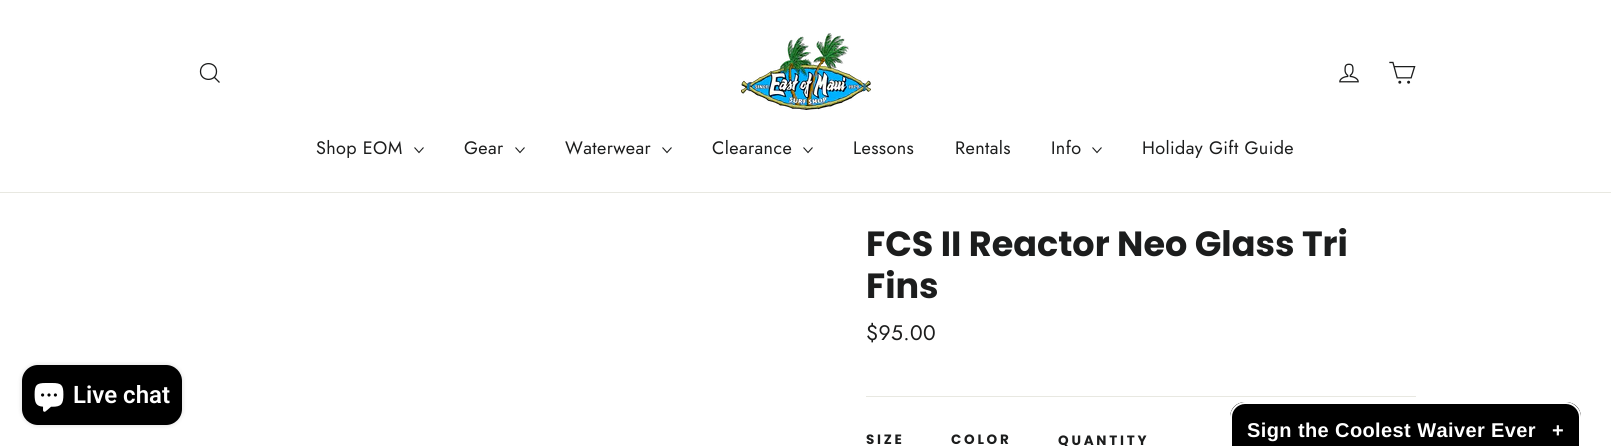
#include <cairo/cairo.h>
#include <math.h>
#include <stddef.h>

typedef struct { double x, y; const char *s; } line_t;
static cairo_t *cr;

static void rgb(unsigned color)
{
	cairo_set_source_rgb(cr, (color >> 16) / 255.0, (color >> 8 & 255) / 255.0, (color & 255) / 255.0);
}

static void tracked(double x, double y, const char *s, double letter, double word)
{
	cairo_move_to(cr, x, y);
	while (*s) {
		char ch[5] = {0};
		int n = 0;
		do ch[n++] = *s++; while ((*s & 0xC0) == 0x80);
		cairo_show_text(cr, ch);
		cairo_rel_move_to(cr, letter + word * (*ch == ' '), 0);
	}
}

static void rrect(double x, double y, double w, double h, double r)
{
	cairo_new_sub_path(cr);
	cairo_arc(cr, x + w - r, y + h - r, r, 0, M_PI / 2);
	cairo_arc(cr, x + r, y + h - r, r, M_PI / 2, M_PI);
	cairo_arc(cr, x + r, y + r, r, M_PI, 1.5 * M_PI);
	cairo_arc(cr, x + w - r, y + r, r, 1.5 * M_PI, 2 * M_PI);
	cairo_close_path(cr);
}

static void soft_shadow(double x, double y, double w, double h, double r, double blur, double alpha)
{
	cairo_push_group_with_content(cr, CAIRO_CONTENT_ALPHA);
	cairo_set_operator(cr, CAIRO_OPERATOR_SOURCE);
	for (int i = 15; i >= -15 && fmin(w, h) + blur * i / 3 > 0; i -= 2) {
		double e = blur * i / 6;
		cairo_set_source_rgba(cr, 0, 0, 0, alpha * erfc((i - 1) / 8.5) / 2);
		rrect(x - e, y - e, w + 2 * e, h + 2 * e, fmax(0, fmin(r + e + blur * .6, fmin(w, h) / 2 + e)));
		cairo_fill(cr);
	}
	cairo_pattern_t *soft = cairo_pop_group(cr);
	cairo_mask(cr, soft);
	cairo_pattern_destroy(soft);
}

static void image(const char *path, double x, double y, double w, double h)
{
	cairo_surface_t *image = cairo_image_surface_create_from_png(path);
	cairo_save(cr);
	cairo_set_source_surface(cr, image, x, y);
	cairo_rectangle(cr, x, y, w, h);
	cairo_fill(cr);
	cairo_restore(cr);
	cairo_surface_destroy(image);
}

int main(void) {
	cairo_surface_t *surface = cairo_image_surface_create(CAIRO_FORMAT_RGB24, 1611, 446);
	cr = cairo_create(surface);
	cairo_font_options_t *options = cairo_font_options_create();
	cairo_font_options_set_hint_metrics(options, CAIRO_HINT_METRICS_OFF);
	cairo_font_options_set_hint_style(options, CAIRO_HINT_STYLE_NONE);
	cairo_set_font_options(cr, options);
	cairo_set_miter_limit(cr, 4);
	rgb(0xffffff);
	cairo_paint(cr);
	rgb(0x000000);
	soft_shadow(22, 365, 160, 60, 16, 2.5, 0.15);
	rgb(0x000000);
	rrect(22, 365, 160, 60, 16);
	cairo_fill(cr);
	image("img/1.png", 34, 383, 30, 29);
	rgb(0xe8e8e1);
	cairo_rectangle(cr, 0, 192, 1611, 1);
	cairo_fill(cr);
	cairo_new_path(cr);
	cairo_move_to(cr, 216.5, 71.5);
	cairo_curve_to(cr, 216.5, 82, 200.5, 82, 200.5, 71.5);
	cairo_curve_to(cr, 200.5, 61, 216.5, 61, 216.5, 71.5);
	cairo_close_path(cr);
	cairo_move_to(cr, 219.5, 82.5);
	cairo_line_to(cr, 214.5, 77.5);
	rgb(0x1c1d1d);
	cairo_set_line_width(cr, 1.3);
	cairo_stroke(cr);
	image("img/2.png", 741, 33, 130, 77);
	image("img/3.png", 1339, 63, 20, 20);
	image("img/4.png", 1389, 61, 27, 23);
	cairo_new_path(cr);
	cairo_move_to(cr, 414.5, 147.5);
	cairo_line_to(cr, 419, 152.5);
	cairo_line_to(cr, 423.5, 147.5);
	cairo_set_line_width(cr, 1.1);
	cairo_stroke(cr);
	cairo_new_path(cr);
	cairo_move_to(cr, 515.5, 147.5);
	cairo_line_to(cr, 520, 152.5);
	cairo_line_to(cr, 524.5, 147.5);
	cairo_stroke(cr);
	cairo_new_path(cr);
	cairo_move_to(cr, 662.5, 147.5);
	cairo_line_to(cr, 667, 152.5);
	cairo_line_to(cr, 671.5, 147.5);
	cairo_stroke(cr);
	cairo_new_path(cr);
	cairo_move_to(cr, 803.5, 147.5);
	cairo_line_to(cr, 808, 152.5);
	cairo_line_to(cr, 812.5, 147.5);
	cairo_stroke(cr);
	cairo_new_path(cr);
	cairo_move_to(cr, 1092.5, 147.5);
	cairo_line_to(cr, 1097, 152.5);
	cairo_line_to(cr, 1101.5, 147.5);
	cairo_stroke(cr);
	rgb(0xe8e8e1);
	cairo_rectangle(cr, 866, 396, 550, 1);
	cairo_fill(cr);
	rgb(0x000000);
	cairo_new_path(cr);
	cairo_move_to(cr, 1245, 402);
	cairo_line_to(cr, 1566, 402);
	cairo_curve_to(cr, 1574.5, 402, 1581, 408.5, 1581, 417);
	cairo_line_to(cr, 1581, 446);
	cairo_line_to(cr, 1230, 446);
	cairo_line_to(cr, 1230, 417);
	cairo_curve_to(cr, 1230, 408.5, 1236.5, 402, 1245, 402);
	cairo_close_path(cr);
	cairo_fill(cr);
	rgb(0xffffff);
	cairo_set_fill_rule(cr, CAIRO_FILL_RULE_EVEN_ODD);
	cairo_new_path(cr);
	cairo_move_to(cr, 1245, 402);
	cairo_line_to(cr, 1566, 402);
	cairo_curve_to(cr, 1574, 402, 1581, 409, 1581, 417);
	cairo_line_to(cr, 1581, 446);
	cairo_line_to(cr, 1230, 446);
	cairo_line_to(cr, 1230, 417);
	cairo_curve_to(cr, 1230, 409, 1237, 402, 1245, 402);
	cairo_close_path(cr);
	cairo_move_to(cr, 1245, 404);
	cairo_line_to(cr, 1566, 404);
	cairo_curve_to(cr, 1573, 404, 1579, 410, 1579, 417);
	cairo_line_to(cr, 1579, 446);
	cairo_line_to(cr, 1232, 446);
	cairo_line_to(cr, 1232, 417);
	cairo_curve_to(cr, 1232, 410, 1238, 404, 1245, 404);
	cairo_close_path(cr);
	cairo_fill(cr);
	cairo_select_font_face(cr, "Roboto SemiBold", CAIRO_FONT_SLANT_NORMAL, CAIRO_FONT_WEIGHT_NORMAL);
	cairo_set_font_size(cr, 24);
	cairo_move_to(cr, 73, 403);
	cairo_show_text(cr, "Live chat");
	cairo_select_font_face(cr, "Jost", CAIRO_FONT_SLANT_NORMAL, CAIRO_FONT_WEIGHT_NORMAL);
	cairo_set_font_size(cr, 18);
	rgb(0x1c1d1d);
	{
		static const line_t items[] = {
			{316, 154, "Shop EOM"},
			{464, 154, "Gear"},
			{565, 154, "Waterwear"},
			{712, 154, "Clearance"},
			{853, 154, "Lessons"},
			{955, 154, "Rentals"},
			{1051, 154, "Info"},
			{1142, 154, "Holiday Gift Guide"},
		};
		for (size_t i = 0; i < sizeof items / sizeof *items; i++) {
			tracked(items[i].x, items[i].y, items[i].s, 0.4, 0);
		}
	}
	cairo_select_font_face(cr, "Poppins", CAIRO_FONT_SLANT_NORMAL, CAIRO_FONT_WEIGHT_BOLD);
	cairo_set_font_size(cr, 35);
	cairo_move_to(cr, 866, 256);
	cairo_show_text(cr, "FCS II Reactor Neo Glass Tri");
	cairo_move_to(cr, 866, 298);
	cairo_show_text(cr, "Fins");
	cairo_select_font_face(cr, "Jost", CAIRO_FONT_SLANT_NORMAL, CAIRO_FONT_WEIGHT_NORMAL);
	cairo_set_font_size(cr, 21);
	tracked(866, 340, "$95.00", 0.4, 0);
	cairo_select_font_face(cr, "Poppins", CAIRO_FONT_SLANT_NORMAL, CAIRO_FONT_WEIGHT_BOLD);
	cairo_set_font_size(cr, 13.5);
	{
		static const line_t items[] = {
			{866, 444, "SIZE"},
			{951, 444, "COLOR"},
			{1058, 445, "QUANTITY"},
		};
		for (size_t i = 0; i < sizeof items / sizeof *items; i++) {
			tracked(items[i].x, items[i].y, items[i].s, 2.75, 0);
		}
	}
	cairo_select_font_face(cr, "Liberation Sans", CAIRO_FONT_SLANT_NORMAL, CAIRO_FONT_WEIGHT_BOLD);
	cairo_set_font_size(cr, 20);
	rgb(0xffffff);
	tracked(1247, 437, "Sign the Coolest Waiver Ever", 0.4, 0);
	tracked(1552, 437, "+", 0.4, 0);
	cairo_surface_write_to_png(surface, "page.png");
	cairo_font_options_destroy(options);
	cairo_destroy(cr);
	cairo_surface_destroy(surface);
	return 0;
}
